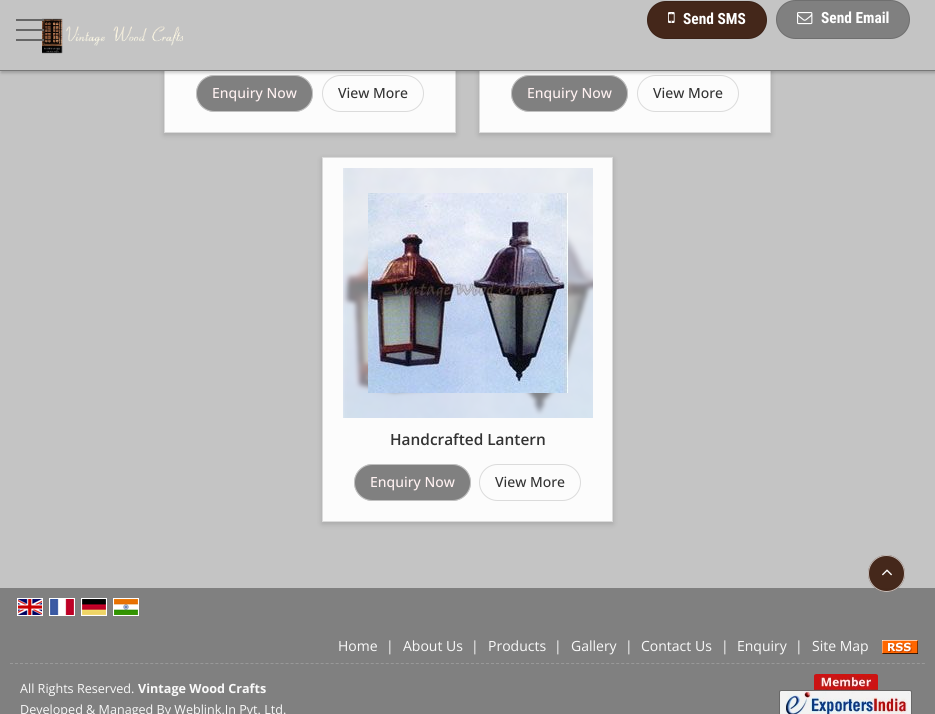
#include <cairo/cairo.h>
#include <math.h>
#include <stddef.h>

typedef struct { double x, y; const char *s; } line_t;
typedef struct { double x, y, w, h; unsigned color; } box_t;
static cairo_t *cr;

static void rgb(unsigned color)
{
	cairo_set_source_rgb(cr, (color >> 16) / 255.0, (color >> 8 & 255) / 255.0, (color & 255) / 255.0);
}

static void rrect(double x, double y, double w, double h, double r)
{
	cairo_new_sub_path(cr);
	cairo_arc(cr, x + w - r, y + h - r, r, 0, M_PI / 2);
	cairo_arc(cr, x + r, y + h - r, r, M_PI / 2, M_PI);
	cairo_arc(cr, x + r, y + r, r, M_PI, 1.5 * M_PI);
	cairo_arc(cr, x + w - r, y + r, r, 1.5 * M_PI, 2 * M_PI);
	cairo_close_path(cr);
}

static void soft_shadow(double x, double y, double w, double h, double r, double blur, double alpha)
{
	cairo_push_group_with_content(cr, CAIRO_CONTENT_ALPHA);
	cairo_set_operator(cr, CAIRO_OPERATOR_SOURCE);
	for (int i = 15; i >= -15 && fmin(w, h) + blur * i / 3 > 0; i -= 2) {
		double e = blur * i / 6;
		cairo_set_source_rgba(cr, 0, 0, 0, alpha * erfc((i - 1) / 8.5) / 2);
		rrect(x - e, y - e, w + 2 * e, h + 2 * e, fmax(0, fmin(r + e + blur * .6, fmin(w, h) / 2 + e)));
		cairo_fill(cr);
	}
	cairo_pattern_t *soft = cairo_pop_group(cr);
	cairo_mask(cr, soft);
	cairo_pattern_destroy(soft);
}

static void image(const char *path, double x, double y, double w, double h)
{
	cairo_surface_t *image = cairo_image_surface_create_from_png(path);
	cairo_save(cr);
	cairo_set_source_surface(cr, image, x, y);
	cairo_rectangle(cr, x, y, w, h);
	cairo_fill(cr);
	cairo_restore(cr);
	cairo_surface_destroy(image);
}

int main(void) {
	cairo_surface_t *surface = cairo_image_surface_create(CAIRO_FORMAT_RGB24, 935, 714);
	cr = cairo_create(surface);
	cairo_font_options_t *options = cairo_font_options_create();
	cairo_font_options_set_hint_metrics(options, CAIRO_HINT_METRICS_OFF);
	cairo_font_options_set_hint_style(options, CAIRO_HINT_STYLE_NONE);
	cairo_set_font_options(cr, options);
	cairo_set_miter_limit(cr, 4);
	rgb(0xc4c4c4);
	cairo_paint(cr);
	rgb(0x000000);
	soft_shadow(164, -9, 292, 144, 0, 3, 0.15);
	rgb(0xfcfcfc);
	cairo_rectangle(cr, 165, 71, 290, 61);
	cairo_fill(cr);
	cairo_rectangle(cr, 164.5, -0.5, 291, 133);
	rgb(0xdbdbdb);
	cairo_set_line_width(cr, 1);
	cairo_stroke(cr);
	rgb(0x808080);
	rrect(196, 75, 117, 37, 18.5);
	cairo_fill(cr);
	rrect(196.5, 75.5, 116, 36, 18);
	cairo_set_source_rgba(cr, 1, 1, 1, 0.5);
	cairo_stroke(cr);
	rrect(322.5, 75.5, 101, 36, 18);
	rgb(0xdbdbdb);
	cairo_stroke(cr);
	rgb(0x000000);
	soft_shadow(479, -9, 292, 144, 0, 3, 0.15);
	rgb(0xfcfcfc);
	cairo_rectangle(cr, 480, 71, 290, 61);
	cairo_fill(cr);
	cairo_rectangle(cr, 479.5, -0.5, 291, 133);
	rgb(0xdbdbdb);
	cairo_stroke(cr);
	rgb(0x808080);
	rrect(511, 75, 117, 37, 18.5);
	cairo_fill(cr);
	rrect(511.5, 75.5, 116, 36, 18);
	cairo_set_source_rgba(cr, 1, 1, 1, 0.5);
	cairo_stroke(cr);
	rrect(637.5, 75.5, 101, 36, 18);
	rgb(0xdbdbdb);
	cairo_stroke(cr);
	rgb(0x000000);
	soft_shadow(1, 2, 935, 71, 0, 1.5, 0.2);
	rgb(0xc4c4c4);
	cairo_rectangle(cr, 0, 0, 935, 70);
	cairo_fill(cr);
	rgb(0x767676);
	cairo_rectangle(cr, 0, 70, 935, 1);
	cairo_fill(cr);
	image("img/1.png", 42, 18, 141, 36);
	{
		static const box_t items[] = {
			{16, 29, 28, 2, 0x666666},
			{16, 19, 28, 2, 0x666666},
			{16, 39, 28, 2, 0x666666},
		};
		for (size_t i = 0; i < sizeof items / sizeof *items; i++) {
			rgb(items[i].color);
			cairo_rectangle(cr, items[i].x, items[i].y, items[i].w, items[i].h);
			cairo_fill(cr);
		}
	}
	rgb(0x44271a);
	rrect(647, 1, 120, 38, 19);
	cairo_fill(cr);
	rrect(647.5, 1.5, 119, 37, 18.5);
	cairo_set_source_rgba(cr, 0, 0, 0, 0.13);
	cairo_stroke(cr);
	image("img/2.png", 668, 12, 7, 11);
	rgb(0x808080);
	rrect(776, 0, 134, 39, 19.5);
	cairo_fill(cr);
	rrect(776.5, 0.5, 133, 38, 19);
	cairo_set_source_rgba(cr, 0, 0, 0, 0.13);
	cairo_stroke(cr);
	image("img/3.png", 797, 12, 16, 13);
	rgb(0x000000);
	soft_shadow(322, 159, 291, 365, 0, 3, 0.15);
	rgb(0xfcfcfc);
	cairo_rectangle(cr, 322.5, 157.5, 290, 364);
	cairo_fill_preserve(cr);
	rgb(0xdbdbdb);
	cairo_stroke(cr);
	rgb(0xf7f7f7);
	cairo_rectangle(cr, 343, 168, 5, 250);
	cairo_fill(cr);
	image("img/4.png", 343, 168, 250, 250);
	cairo_save(cr);
	cairo_rectangle(cr, 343, 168, 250, 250);
	cairo_clip(cr);
	rgb(0xf7f7f7);
	soft_shadow(343, 158, 260, 270, 0, 2, 0.5);
	cairo_restore(cr);
	image("img/5.png", 368, 193, 200, 200);
	rgb(0x808080);
	rrect(354, 464, 117, 37, 18.5);
	cairo_fill(cr);
	rrect(354.5, 464.5, 116, 36, 18);
	cairo_set_source_rgba(cr, 1, 1, 1, 0.5);
	cairo_stroke(cr);
	rrect(479.5, 464.5, 101, 36, 18);
	rgb(0xdbdbdb);
	cairo_stroke(cr);
	rgb(0x808080);
	cairo_rectangle(cr, 0, 588, 935, 126);
	cairo_fill(cr);
	cairo_rectangle(cr, 17.5, 598.5, 25, 17);
	rgb(0xffffff);
	cairo_stroke(cr);
	cairo_rectangle(cr, 49.5, 598.5, 25, 17);
	cairo_stroke(cr);
	cairo_rectangle(cr, 81.5, 598.5, 25, 17);
	cairo_stroke(cr);
	cairo_rectangle(cr, 113.5, 598.5, 25, 17);
	cairo_stroke(cr);
	image("img/6.png", 18, 599, 24, 16);
	image("img/7.png", 50, 599, 24, 16);
	image("img/8.png", 82, 599, 24, 16);
	image("img/9.png", 114, 599, 24, 16);
	image("img/10.png", 882, 640, 36, 14);
	cairo_new_path(cr);
	cairo_move_to(cr, 10, 663.5);
	cairo_line_to(cr, 925, 663.5);
	rgb(0x999999);
	cairo_set_dash(cr, (double[]){3, 2.01}, 2, 0);
	cairo_stroke(cr);
	image("img/11.png", 779, 674, 133, 40);
	cairo_set_source_rgba(cr, 0.267, 0.153, 0.102, 0.99);
	cairo_arc(cr, 886.5, 573.5, 18.5, 0, 2 * M_PI);
	cairo_fill(cr);
	cairo_arc(cr, 886.5, 573.5, 18, 0, 2 * M_PI);
	cairo_set_source_rgba(cr, 1, 1, 1, 0.69);
	cairo_set_dash(cr, NULL, 0, 0);
	cairo_stroke(cr);
	image("img/12.png", 882, 569, 10, 7);
	cairo_select_font_face(cr, "Roboto Condensed", CAIRO_FONT_SLANT_NORMAL, CAIRO_FONT_WEIGHT_BOLD);
	cairo_set_font_size(cr, 15.4);
	rgb(0xffffff);
	cairo_move_to(cr, 683, 24);
	cairo_show_text(cr, "Send SMS");
	cairo_move_to(cr, 821, 23);
	cairo_show_text(cr, "Send Email");
	cairo_select_font_face(cr, "Open Sans Medium", CAIRO_FONT_SLANT_NORMAL, CAIRO_FONT_WEIGHT_NORMAL);
	cairo_set_font_size(cr, 14);
	rgb(0xfff1f1);
	cairo_move_to(cr, 212, 98);
	cairo_show_text(cr, "Enquiry Now");
	rgb(0x333333);
	cairo_move_to(cr, 338, 98);
	cairo_show_text(cr, "View More");
	rgb(0xfff1f1);
	cairo_move_to(cr, 527, 98);
	cairo_show_text(cr, "Enquiry Now");
	rgb(0x333333);
	cairo_move_to(cr, 653, 98);
	cairo_show_text(cr, "View More");
	cairo_select_font_face(cr, "Open Sans SemiBold", CAIRO_FONT_SLANT_NORMAL, CAIRO_FONT_WEIGHT_NORMAL);
	cairo_set_font_size(cr, 15.4);
	cairo_move_to(cr, 390, 445);
	cairo_show_text(cr, "Handcrafted Lantern");
	cairo_select_font_face(cr, "Open Sans Medium", CAIRO_FONT_SLANT_NORMAL, CAIRO_FONT_WEIGHT_NORMAL);
	cairo_set_font_size(cr, 14);
	rgb(0xfff1f1);
	cairo_move_to(cr, 370, 487);
	cairo_show_text(cr, "Enquiry Now");
	rgb(0x333333);
	cairo_move_to(cr, 495, 487);
	cairo_show_text(cr, "View More");
	cairo_select_font_face(cr, "Open Sans", CAIRO_FONT_SLANT_NORMAL, CAIRO_FONT_WEIGHT_NORMAL);
	rgb(0xf9f9f9);
	{
		static const line_t items[] = {
			{338, 651, "Home"},
			{386, 651, "|"},
			{403, 651, "About Us"},
			{471, 651, "|"},
			{488, 651, "Products"},
			{554, 651, "|"},
			{571, 651, "Gallery"},
			{625, 651, "|"},
			{641, 651, "Contact Us"},
			{721, 651, "|"},
			{737, 651, "Enquiry"},
			{795, 651, "|"},
			{812, 651, "Site Map"},
		};
		for (size_t i = 0; i < sizeof items / sizeof *items; i++) {
			cairo_move_to(cr, items[i].x, items[i].y);
			cairo_show_text(cr, items[i].s);
		}
	}
	cairo_set_font_size(cr, 12.6);
	cairo_move_to(cr, 20, 693);
	cairo_show_text(cr, "All Rights Reserved.");
	cairo_select_font_face(cr, "Open Sans", CAIRO_FONT_SLANT_NORMAL, CAIRO_FONT_WEIGHT_BOLD);
	cairo_move_to(cr, 138, 693);
	cairo_show_text(cr, "Vintage Wood Crafts");
	cairo_select_font_face(cr, "Open Sans", CAIRO_FONT_SLANT_NORMAL, CAIRO_FONT_WEIGHT_NORMAL);
	cairo_move_to(cr, 20, 714);
	cairo_show_text(cr, "Developed & Managed By Weblink.In Pvt. Ltd.");
	cairo_surface_write_to_png(surface, "page.png");
	cairo_font_options_destroy(options);
	cairo_destroy(cr);
	cairo_surface_destroy(surface);
	return 0;
}
